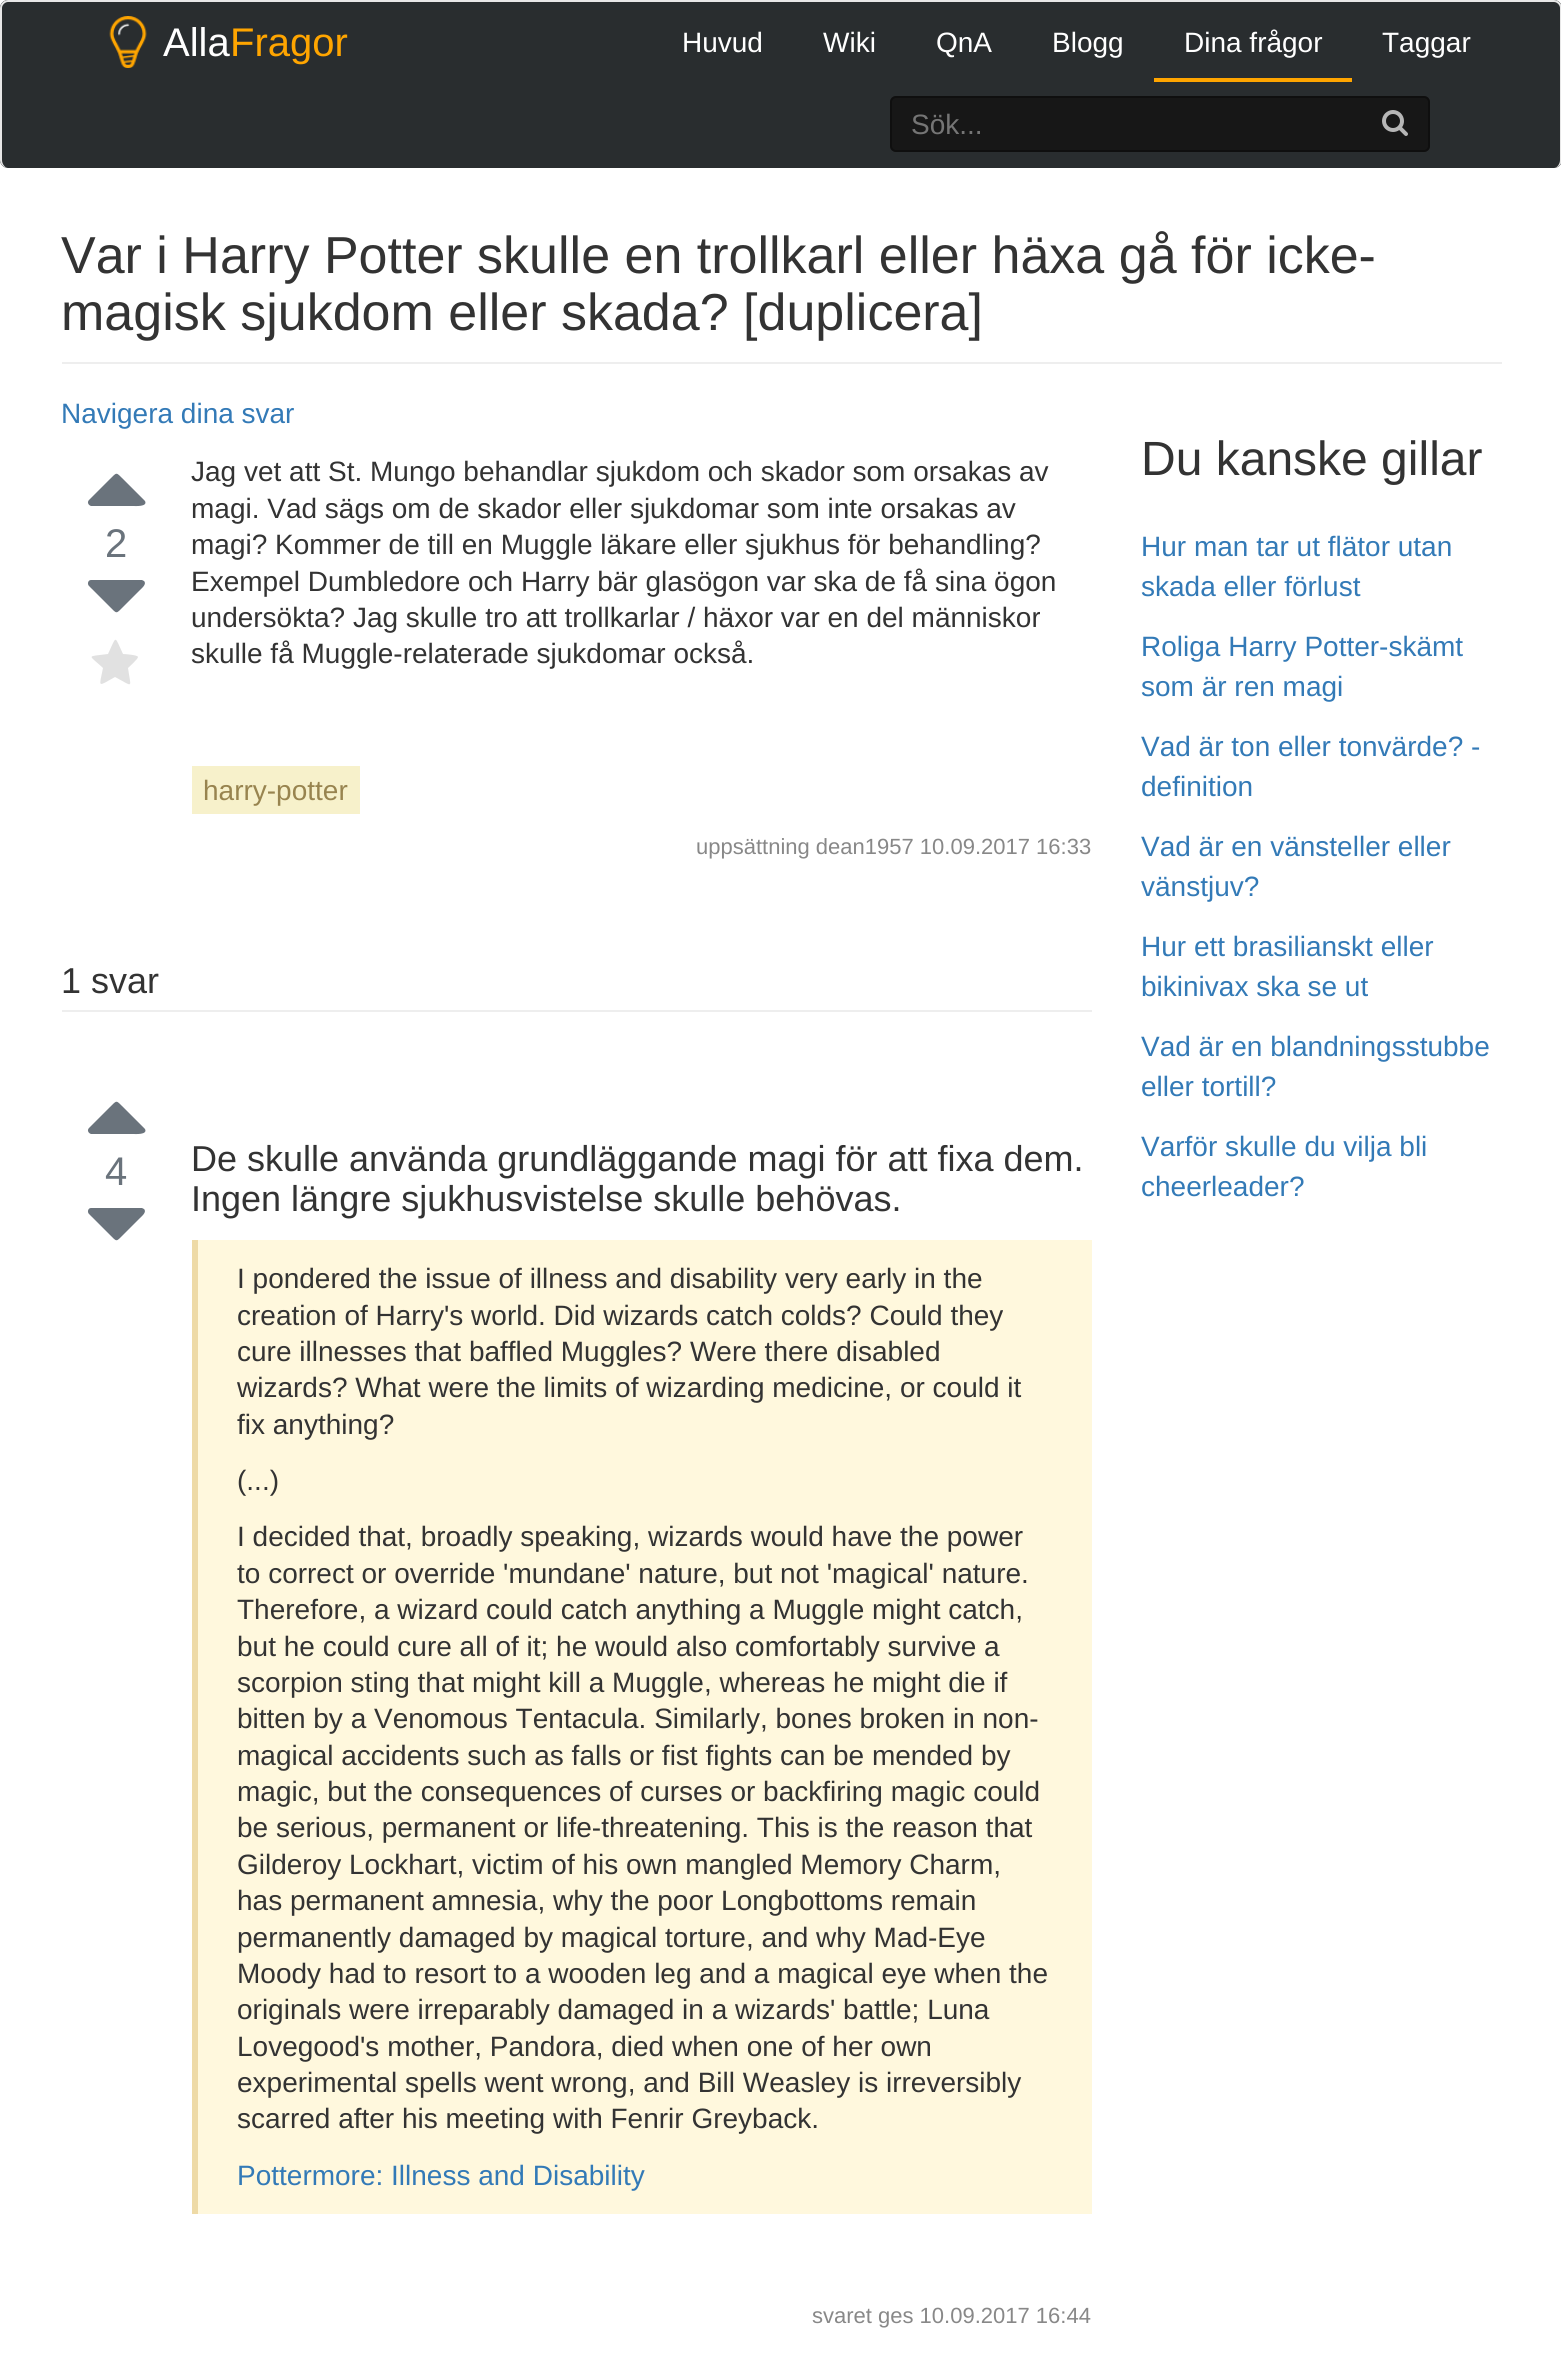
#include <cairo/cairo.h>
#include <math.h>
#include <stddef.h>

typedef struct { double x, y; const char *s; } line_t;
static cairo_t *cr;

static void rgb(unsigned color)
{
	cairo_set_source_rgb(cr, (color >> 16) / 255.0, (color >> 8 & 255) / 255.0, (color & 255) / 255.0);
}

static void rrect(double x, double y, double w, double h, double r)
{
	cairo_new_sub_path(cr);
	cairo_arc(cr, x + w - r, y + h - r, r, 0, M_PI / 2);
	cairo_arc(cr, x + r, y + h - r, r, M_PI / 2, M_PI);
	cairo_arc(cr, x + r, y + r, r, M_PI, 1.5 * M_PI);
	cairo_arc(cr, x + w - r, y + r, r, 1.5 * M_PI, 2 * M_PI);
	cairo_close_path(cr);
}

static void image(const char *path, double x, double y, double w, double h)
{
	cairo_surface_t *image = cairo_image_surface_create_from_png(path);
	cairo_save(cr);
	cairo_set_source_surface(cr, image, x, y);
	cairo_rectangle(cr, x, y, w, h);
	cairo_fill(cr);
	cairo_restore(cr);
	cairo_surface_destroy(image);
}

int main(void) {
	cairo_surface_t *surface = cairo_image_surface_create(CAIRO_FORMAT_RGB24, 1561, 2380);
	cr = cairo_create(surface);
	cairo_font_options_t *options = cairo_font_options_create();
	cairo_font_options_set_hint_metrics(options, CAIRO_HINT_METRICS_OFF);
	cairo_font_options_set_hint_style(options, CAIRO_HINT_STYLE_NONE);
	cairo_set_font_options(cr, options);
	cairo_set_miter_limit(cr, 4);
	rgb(0xffffff);
	cairo_paint(cr);
	rgb(0x292d2f);
	rrect(0, 0, 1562, 168, 8);
	cairo_fill(cr);
	rgb(0xe7e7e7);
	cairo_set_fill_rule(cr, CAIRO_FILL_RULE_EVEN_ODD);
	cairo_new_path(cr);
	cairo_move_to(cr, 8, 0);
	cairo_line_to(cr, 1554, 0);
	cairo_curve_to(cr, 1558, 0, 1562, 4, 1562, 8);
	cairo_line_to(cr, 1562, 160);
	cairo_curve_to(cr, 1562, 164, 1558, 168, 1554, 168);
	cairo_line_to(cr, 8, 168);
	cairo_curve_to(cr, 4, 168, 0, 164, 0, 160);
	cairo_line_to(cr, 0, 8);
	cairo_curve_to(cr, 0, 4, 4, 0, 8, 0);
	cairo_close_path(cr);
	cairo_move_to(cr, 8, 2);
	cairo_line_to(cr, 1554, 2);
	cairo_curve_to(cr, 1557, 2, 1560, 5, 1560, 8);
	cairo_line_to(cr, 1560, 160);
	cairo_curve_to(cr, 1560, 164, 1557, 168, 1554, 168);
	cairo_line_to(cr, 8, 168);
	cairo_curve_to(cr, 5, 168, 2, 164, 2, 160);
	cairo_line_to(cr, 2, 8);
	cairo_curve_to(cr, 2, 5, 5, 2, 8, 2);
	cairo_close_path(cr);
	cairo_fill(cr);
	image("img/1.png", 109, 16, 38, 52);
	rgb(0xffa500);
	cairo_rectangle(cr, 1154, 78, 198, 4);
	cairo_fill(cr);
	rgb(0x171717);
	rrect(890, 96, 540, 56, 6);
	cairo_fill(cr);
	rrect(891, 97, 538, 54, 5);
	cairo_set_source_rgba(cr, 0, 0, 0, 0.36);
	cairo_stroke(cr);
	image("img/2.png", 1382, 110, 26, 26);
	rgb(0xeeeeee);
	cairo_rectangle(cr, 62, 362, 1440, 2);
	cairo_fill(cr);
	rgb(0x6a737c);
	cairo_set_fill_rule(cr, CAIRO_FILL_RULE_WINDING);
	cairo_new_path(cr);
	cairo_move_to(cr, 144, 500);
	cairo_line_to(cr, 145, 501);
	cairo_curve_to(cr, 148, 507, 135, 506, 133, 506);
	cairo_line_to(cr, 91, 506);
	cairo_curve_to(cr, 88, 505, 87, 502, 89, 500);
	cairo_line_to(cr, 110, 479);
	cairo_curve_to(cr, 117, 472, 116, 472, 123, 479);
	cairo_close_path(cr);
	cairo_fill(cr);
	cairo_new_path(cr);
	cairo_move_to(cr, 144, 581);
	cairo_curve_to(cr, 147, 584, 142, 588, 140, 590);
	cairo_line_to(cr, 123, 607);
	cairo_curve_to(cr, 116, 614, 117, 614, 110, 607);
	cairo_line_to(cr, 89, 586);
	cairo_curve_to(cr, 87, 584, 88, 580, 91, 580);
	cairo_line_to(cr, 142, 580);
	cairo_close_path(cr);
	cairo_fill(cr);
	rgb(0xe1e1e1);
	cairo_new_path(cr);
	cairo_move_to(cr, 138, 657);
	cairo_curve_to(cr, 138, 659, 129, 667, 128, 668);
	cairo_curve_to(cr, 131, 689, 134, 687, 115, 677);
	cairo_curve_to(cr, 97, 687, 99, 688, 103, 668);
	cairo_curve_to(cr, 88, 654, 86, 657, 108, 654);
	cairo_curve_to(cr, 117, 635, 114, 635, 123, 654);
	cairo_curve_to(cr, 125, 654, 138, 655, 138, 657);
	cairo_close_path(cr);
	cairo_fill(cr);
	rgb(0xf7f1cb);
	cairo_rectangle(cr, 192, 766, 168, 48);
	cairo_fill(cr);
	rgb(0xeeeeee);
	cairo_rectangle(cr, 62, 1010, 1030, 2);
	cairo_fill(cr);
	rgb(0x6a737c);
	cairo_new_path(cr);
	cairo_move_to(cr, 144, 1128);
	cairo_line_to(cr, 145, 1129);
	cairo_curve_to(cr, 148, 1135, 135, 1134, 133, 1134);
	cairo_line_to(cr, 91, 1134);
	cairo_curve_to(cr, 88, 1133, 87, 1130, 89, 1128);
	cairo_line_to(cr, 110, 1107);
	cairo_curve_to(cr, 117, 1100, 116, 1100, 123, 1107);
	cairo_close_path(cr);
	cairo_fill(cr);
	cairo_new_path(cr);
	cairo_move_to(cr, 144, 1209);
	cairo_curve_to(cr, 147, 1212, 142, 1216, 140, 1218);
	cairo_line_to(cr, 123, 1235);
	cairo_curve_to(cr, 116, 1242, 117, 1242, 110, 1235);
	cairo_line_to(cr, 89, 1214);
	cairo_curve_to(cr, 87, 1212, 88, 1208, 91, 1208);
	cairo_line_to(cr, 142, 1208);
	cairo_close_path(cr);
	cairo_fill(cr);
	rgb(0xfff8dd);
	cairo_rectangle(cr, 198, 1240, 894, 974);
	cairo_fill(cr);
	rgb(0xeedaa6);
	cairo_rectangle(cr, 192, 1240, 6, 974);
	cairo_fill(cr);
	cairo_select_font_face(cr, "Liberation Sans", CAIRO_FONT_SLANT_NORMAL, CAIRO_FONT_WEIGHT_NORMAL);
	cairo_set_font_size(cr, 40);
	rgb(0xffffff);
	cairo_move_to(cr, 163, 56);
	cairo_show_text(cr, "Alla");
	rgb(0xffa500);
	cairo_move_to(cr, 230, 56);
	cairo_show_text(cr, "Fragor");
	cairo_set_font_size(cr, 28);
	rgb(0xffffff);
	{
		static const line_t items[] = {
			{682, 52, "Huvud"},
			{823, 52, "Wiki"},
			{936, 52, "QnA"},
			{1052, 52, "Blogg"},
			{1184, 52, "Dina frågor"},
			{1382, 52, "Taggar"},
		};
		for (size_t i = 0; i < sizeof items / sizeof *items; i++) {
			cairo_move_to(cr, items[i].x, items[i].y);
			cairo_show_text(cr, items[i].s);
		}
	}
	rgb(0x757575);
	cairo_move_to(cr, 911, 134);
	cairo_show_text(cr, "Sök...");
	cairo_set_font_size(cr, 52);
	rgb(0x333333);
	cairo_move_to(cr, 61, 273);
	cairo_show_text(cr, "Var i Harry Potter skulle en trollkarl eller häxa gå för icke-");
	cairo_move_to(cr, 61, 330);
	cairo_show_text(cr, "magisk sjukdom eller skada? [duplicera]");
	cairo_set_font_size(cr, 28);
	rgb(0x337ab7);
	cairo_move_to(cr, 61, 423);
	cairo_show_text(cr, "Navigera dina svar");
	cairo_set_font_size(cr, 40);
	rgb(0x6a737c);
	cairo_move_to(cr, 105, 557);
	cairo_show_text(cr, "2");
	cairo_set_font_size(cr, 28);
	rgb(0x333333);
	{
		static const line_t items[] = {
			{191, 481, "Jag vet att St. Mungo behandlar sjukdom och skador som orsakas av"},
			{191, 518, "magi. Vad sägs om de skador eller sjukdomar som inte orsakas av"},
			{191, 554, "magi? Kommer de till en Muggle läkare eller sjukhus för behandling?"},
			{191, 591, "Exempel Dumbledore och Harry bär glasögon var ska de få sina ögon"},
			{191, 627, "undersökta? Jag skulle tro att trollkarlar / häxor var en del människor"},
			{191, 663, "skulle få Muggle-relaterade sjukdomar också."},
		};
		for (size_t i = 0; i < sizeof items / sizeof *items; i++) {
			cairo_move_to(cr, items[i].x, items[i].y);
			cairo_show_text(cr, items[i].s);
		}
	}
	rgb(0x98844f);
	cairo_move_to(cr, 203, 800);
	cairo_show_text(cr, "harry-potter");
	cairo_set_font_size(cr, 22);
	rgb(0x888888);
	cairo_move_to(cr, 696, 854);
	cairo_show_text(cr, "uppsättning dean1957 10.09.2017 16:33");
	cairo_set_font_size(cr, 36);
	rgb(0x333333);
	cairo_move_to(cr, 61, 993);
	cairo_show_text(cr, "1 svar");
	cairo_set_font_size(cr, 40);
	rgb(0x6a737c);
	cairo_move_to(cr, 105, 1185);
	cairo_show_text(cr, "4");
	cairo_set_font_size(cr, 36);
	rgb(0x333333);
	cairo_move_to(cr, 191, 1171);
	cairo_show_text(cr, "De skulle använda grundläggande magi för att fixa dem.");
	cairo_move_to(cr, 191, 1211);
	cairo_show_text(cr, "Ingen längre sjukhusvistelse skulle behövas.");
	cairo_set_font_size(cr, 28);
	{
		static const line_t items[] = {
			{237, 1288, "I pondered the issue of illness and disability very early in the"},
			{237, 1325, "creation of Harry's world. Did wizards catch colds? Could they"},
			{237, 1361, "cure illnesses that baffled Muggles? Were there disabled"},
			{237, 1397, "wizards? What were the limits of wizarding medicine, or could it"},
			{237, 1434, "fix anything?"},
			{237, 1490, "(...)"},
			{237, 1546, "I decided that, broadly speaking, wizards would have the power"},
			{237, 1583, "to correct or override 'mundane' nature, but not 'magical' nature."},
			{237, 1619, "Therefore, a wizard could catch anything a Muggle might catch,"},
			{237, 1656, "but he could cure all of it; he would also comfortably survive a"},
			{237, 1692, "scorpion sting that might kill a Muggle, whereas he might die if"},
			{237, 1728, "bitten by a Venomous Tentacula. Similarly, bones broken in non-"},
			{237, 1765, "magical accidents such as falls or fist fights can be mended by"},
			{237, 1801, "magic, but the consequences of curses or backfiring magic could"},
			{237, 1837, "be serious, permanent or life-threatening. This is the reason that"},
			{237, 1874, "Gilderoy Lockhart, victim of his own mangled Memory Charm,"},
			{237, 1910, "has permanent amnesia, why the poor Longbottoms remain"},
			{237, 1947, "permanently damaged by magical torture, and why Mad-Eye"},
			{237, 1983, "Moody had to resort to a wooden leg and a magical eye when the"},
			{237, 2019, "originals were irreparably damaged in a wizards' battle; Luna"},
			{237, 2056, "Lovegood's mother, Pandora, died when one of her own"},
			{237, 2092, "experimental spells went wrong, and Bill Weasley is irreversibly"},
			{237, 2128, "scarred after his meeting with Fenrir Greyback."},
		};
		for (size_t i = 0; i < sizeof items / sizeof *items; i++) {
			cairo_move_to(cr, items[i].x, items[i].y);
			cairo_show_text(cr, items[i].s);
		}
	}
	rgb(0x337ab7);
	cairo_move_to(cr, 237, 2185);
	cairo_show_text(cr, "Pottermore: Illness and Disability");
	cairo_set_font_size(cr, 22);
	rgb(0x888888);
	cairo_move_to(cr, 812, 2323);
	cairo_show_text(cr, "svaret ges 10.09.2017 16:44");
	cairo_set_font_size(cr, 48);
	rgb(0x333333);
	cairo_move_to(cr, 1141, 475);
	cairo_show_text(cr, "Du kanske gillar");
	cairo_set_font_size(cr, 28);
	rgb(0x337ab7);
	{
		static const line_t items[] = {
			{1141, 556, "Hur man tar ut flätor utan"},
			{1141, 596, "skada eller förlust"},
			{1141, 656, "Roliga Harry Potter-skämt"},
			{1141, 696, "som är ren magi"},
			{1141, 756, "Vad är ton eller tonvärde? -"},
			{1141, 796, "definition"},
			{1141, 856, "Vad är en vänsteller eller"},
			{1141, 896, "vänstjuv?"},
			{1141, 956, "Hur ett brasilianskt eller"},
			{1141, 996, "bikinivax ska se ut"},
			{1141, 1056, "Vad är en blandningsstubbe"},
			{1141, 1096, "eller tortill?"},
			{1141, 1156, "Varför skulle du vilja bli"},
			{1141, 1196, "cheerleader?"},
		};
		for (size_t i = 0; i < sizeof items / sizeof *items; i++) {
			cairo_move_to(cr, items[i].x, items[i].y);
			cairo_show_text(cr, items[i].s);
		}
	}
	cairo_surface_write_to_png(surface, "page.png");
	cairo_font_options_destroy(options);
	cairo_destroy(cr);
	cairo_surface_destroy(surface);
	return 0;
}
